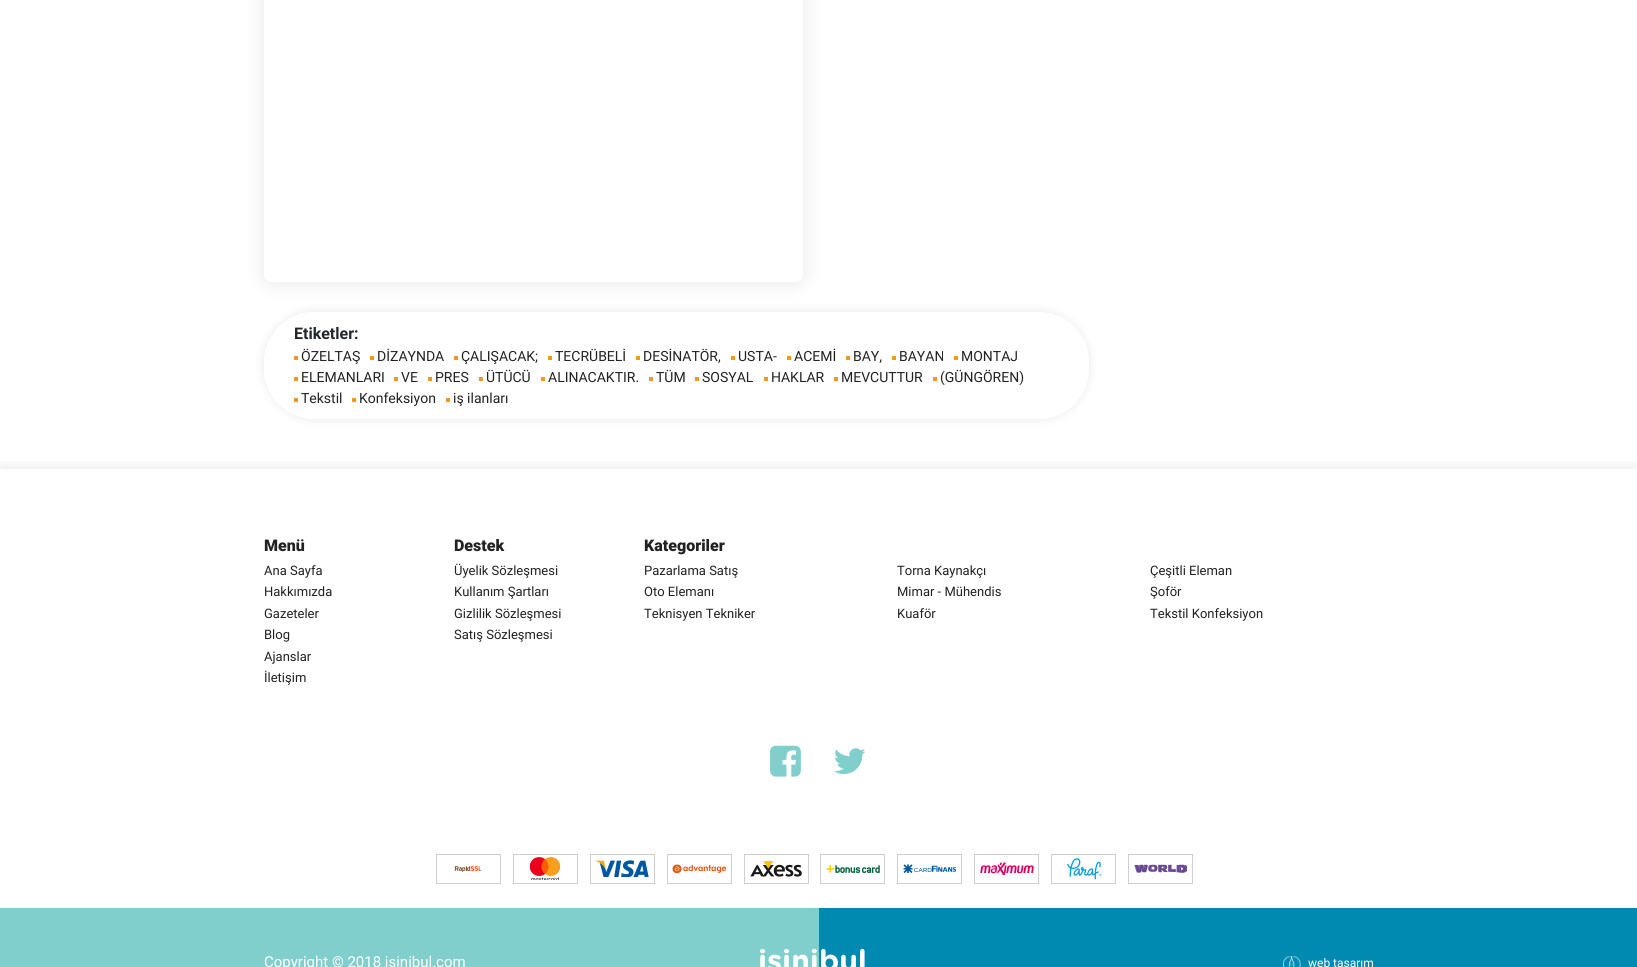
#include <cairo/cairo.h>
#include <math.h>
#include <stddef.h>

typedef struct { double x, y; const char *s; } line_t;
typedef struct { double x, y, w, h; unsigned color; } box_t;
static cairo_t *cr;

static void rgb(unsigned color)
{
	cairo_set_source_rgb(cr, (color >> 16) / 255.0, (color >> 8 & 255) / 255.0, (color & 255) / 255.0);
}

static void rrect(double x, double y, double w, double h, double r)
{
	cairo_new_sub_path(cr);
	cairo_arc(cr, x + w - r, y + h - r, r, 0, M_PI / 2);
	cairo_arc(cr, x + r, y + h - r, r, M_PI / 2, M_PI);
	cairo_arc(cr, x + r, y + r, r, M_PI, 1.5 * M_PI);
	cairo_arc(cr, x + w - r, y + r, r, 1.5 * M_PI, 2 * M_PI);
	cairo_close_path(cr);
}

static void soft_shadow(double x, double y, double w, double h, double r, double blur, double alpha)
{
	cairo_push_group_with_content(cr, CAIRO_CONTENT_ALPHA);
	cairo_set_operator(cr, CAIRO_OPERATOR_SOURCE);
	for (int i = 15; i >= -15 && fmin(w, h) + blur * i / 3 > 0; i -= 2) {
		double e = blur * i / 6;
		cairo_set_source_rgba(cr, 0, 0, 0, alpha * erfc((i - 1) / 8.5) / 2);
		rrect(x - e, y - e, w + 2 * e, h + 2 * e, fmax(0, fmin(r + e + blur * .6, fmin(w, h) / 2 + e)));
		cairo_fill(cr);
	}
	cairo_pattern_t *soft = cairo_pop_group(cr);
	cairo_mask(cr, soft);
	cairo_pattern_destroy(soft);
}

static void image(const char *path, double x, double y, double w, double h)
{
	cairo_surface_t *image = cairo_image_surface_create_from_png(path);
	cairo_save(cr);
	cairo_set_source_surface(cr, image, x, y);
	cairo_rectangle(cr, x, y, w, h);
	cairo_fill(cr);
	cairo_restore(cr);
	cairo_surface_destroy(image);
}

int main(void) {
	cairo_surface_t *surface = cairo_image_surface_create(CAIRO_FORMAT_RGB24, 1637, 967);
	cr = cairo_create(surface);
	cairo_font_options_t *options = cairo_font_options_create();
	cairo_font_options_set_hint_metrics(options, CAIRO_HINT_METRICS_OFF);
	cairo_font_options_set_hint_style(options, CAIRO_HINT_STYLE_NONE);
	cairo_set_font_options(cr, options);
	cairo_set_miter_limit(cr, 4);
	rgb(0xffffff);
	cairo_paint(cr);
	cairo_save(cr);
	cairo_set_fill_rule(cr, CAIRO_FILL_RULE_EVEN_ODD);
	cairo_new_path(cr);
	cairo_move_to(cr, 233, 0);
	cairo_line_to(cr, 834, 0);
	cairo_line_to(cr, 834, 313);
	cairo_line_to(cr, 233, 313);
	cairo_close_path(cr);
	cairo_move_to(cr, 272, -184);
	cairo_line_to(cr, 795, -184);
	cairo_curve_to(cr, 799.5, -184, 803, -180.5, 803, -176);
	cairo_line_to(cr, 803, 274);
	cairo_curve_to(cr, 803, 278.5, 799.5, 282, 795, 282);
	cairo_line_to(cr, 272, 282);
	cairo_curve_to(cr, 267.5, 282, 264, 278.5, 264, 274);
	cairo_line_to(cr, 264, -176);
	cairo_curve_to(cr, 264, -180.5, 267.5, -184, 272, -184);
	cairo_close_path(cr);
	cairo_clip(cr);
	rgb(0x000000);
	soft_shadow(264, -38, 539, 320, 8, 10, 0.1);
	cairo_restore(cr);
	cairo_save(cr);
	cairo_set_fill_rule(cr, CAIRO_FILL_RULE_EVEN_ODD);
	cairo_new_path(cr);
	cairo_move_to(cr, 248, 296);
	cairo_line_to(cr, 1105, 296);
	cairo_line_to(cr, 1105, 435);
	cairo_line_to(cr, 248, 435);
	cairo_close_path(cr);
	cairo_move_to(cr, 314, 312);
	cairo_line_to(cr, 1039, 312);
	cairo_curve_to(cr, 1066.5, 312, 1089, 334.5, 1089, 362);
	cairo_line_to(cr, 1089, 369);
	cairo_curve_to(cr, 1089, 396.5, 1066.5, 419, 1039, 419);
	cairo_line_to(cr, 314, 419);
	cairo_curve_to(cr, 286.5, 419, 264, 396.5, 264, 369);
	cairo_line_to(cr, 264, 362);
	cairo_curve_to(cr, 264, 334.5, 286.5, 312, 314, 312);
	cairo_close_path(cr);
	cairo_clip(cr);
	rgb(0x000000);
	soft_shadow(264, 312, 825, 107, 50, 5, 0.1);
	cairo_restore(cr);
	{
		static const box_t items[] = {
			{294, 356, 4, 4, 0xf4971f},
			{370, 356, 4, 4, 0xf4971f},
			{454, 356, 4, 4, 0xf4971f},
			{548, 356, 4, 4, 0xf4971f},
			{636, 356, 4, 4, 0xf4971f},
			{731, 356, 4, 4, 0xf4971f},
			{787, 356, 4, 4, 0xf4971f},
			{846, 356, 4, 4, 0xf4971f},
			{892, 356, 4, 4, 0xf4971f},
			{954, 356, 4, 4, 0xf4971f},
			{294, 377, 4, 4, 0xf4971f},
			{394, 377, 4, 4, 0xf4971f},
			{428, 377, 4, 4, 0xf4971f},
			{479, 377, 4, 4, 0xf4971f},
			{541, 377, 4, 4, 0xf4971f},
			{649, 377, 4, 4, 0xf4971f},
			{695, 377, 4, 4, 0xf4971f},
			{764, 377, 4, 4, 0xf4971f},
			{834, 377, 4, 4, 0xf4971f},
			{933, 377, 4, 4, 0xf4971f},
			{294, 398, 4, 4, 0xf4971f},
			{352, 398, 4, 4, 0xf4971f},
			{446, 398, 4, 4, 0xf4971f},
		};
		for (size_t i = 0; i < sizeof items / sizeof *items; i++) {
			rgb(items[i].color);
			cairo_rectangle(cr, items[i].x, items[i].y, items[i].w, items[i].h);
			cairo_fill(cr);
		}
	}
	cairo_save(cr);
	cairo_rectangle(cr, 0, 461, 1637, 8);
	cairo_clip(cr);
	rgb(0x010101);
	soft_shadow(0, 469, 1637, 439, 0, 10, 0.1);
	cairo_restore(cr);
	image("img/1.png", 770, 745, 31, 32);
	image("img/2.png", 834, 748, 32, 26);
	cairo_rectangle(cr, 436.5, 854.5, 64, 29);
	rgb(0xcecece);
	cairo_set_line_width(cr, 1);
	cairo_stroke(cr);
	image("img/3.png", 454, 866, 27, 6);
	cairo_rectangle(cr, 513.5, 854.5, 64, 29);
	cairo_stroke(cr);
	image("img/4.png", 530, 857, 30, 23);
	cairo_rectangle(cr, 590.5, 854.5, 64, 29);
	cairo_stroke(cr);
	image("img/5.png", 595, 860, 54, 17);
	cairo_rectangle(cr, 667.5, 854.5, 64, 29);
	cairo_stroke(cr);
	image("img/6.png", 672, 864, 54, 9);
	cairo_rectangle(cr, 744.5, 854.5, 64, 29);
	cairo_stroke(cr);
	image("img/7.png", 750, 861, 52, 16);
	cairo_rectangle(cr, 820.5, 854.5, 64, 29);
	cairo_stroke(cr);
	image("img/8.png", 826, 865, 54, 8);
	cairo_rectangle(cr, 897.5, 854.5, 64, 29);
	cairo_stroke(cr);
	image("img/9.png", 903, 864, 53, 9);
	cairo_rectangle(cr, 974.5, 854.5, 64, 29);
	cairo_stroke(cr);
	image("img/10.png", 980, 862, 54, 13);
	cairo_rectangle(cr, 1051.5, 854.5, 64, 29);
	cairo_stroke(cr);
	image("img/11.png", 1067, 858, 34, 22);
	cairo_rectangle(cr, 1128.5, 854.5, 64, 29);
	cairo_stroke(cr);
	image("img/12.png", 1134, 864, 53, 9);
	rgb(0x80cfcd);
	cairo_rectangle(cr, 0, 908, 819, 59);
	cairo_fill(cr);
	rgb(0x008ab2);
	cairo_rectangle(cr, 819, 908, 818, 59);
	cairo_fill(cr);
	image("img/13.png", 1283, 956, 18, 11);
	cairo_select_font_face(cr, "Roboto", CAIRO_FONT_SLANT_NORMAL, CAIRO_FONT_WEIGHT_BOLD);
	cairo_set_font_size(cr, 16);
	rgb(0x212529);
	cairo_move_to(cr, 294, 339);
	cairo_show_text(cr, "Etiketler:");
	cairo_select_font_face(cr, "Roboto", CAIRO_FONT_SLANT_NORMAL, CAIRO_FONT_WEIGHT_NORMAL);
	cairo_set_font_size(cr, 14);
	rgb(0x222222);
	{
		static const line_t items[] = {
			{301, 361, "ÖZELTAŞ"},
			{377, 361, "DİZAYNDA"},
			{461, 361, "ÇALIŞACAK;"},
			{555, 361, "TECRÜBELİ"},
			{643, 361, "DESİNATÖR,"},
			{738, 361, "USTA-"},
			{794, 361, "ACEMİ"},
			{853, 361, "BAY,"},
			{899, 361, "BAYAN"},
			{961, 361, "MONTAJ"},
			{301, 382, "ELEMANLARI"},
			{401, 382, "VE"},
			{435, 382, "PRES"},
			{486, 382, "ÜTÜCÜ"},
			{548, 382, "ALINACAKTIR."},
			{656, 382, "TÜM"},
			{702, 382, "SOSYAL"},
			{771, 382, "HAKLAR"},
			{841, 382, "MEVCUTTUR"},
			{940, 382, "(GÜNGÖREN)"},
			{301, 403, "Tekstil"},
			{359, 403, "Konfeksiyon"},
			{453, 403, "iş ilanları"},
		};
		for (size_t i = 0; i < sizeof items / sizeof *items; i++) {
			cairo_move_to(cr, items[i].x, items[i].y);
			cairo_show_text(cr, items[i].s);
		}
	}
	cairo_select_font_face(cr, "Roboto Black", CAIRO_FONT_SLANT_NORMAL, CAIRO_FONT_WEIGHT_NORMAL);
	cairo_set_font_size(cr, 16);
	cairo_move_to(cr, 264, 551);
	cairo_show_text(cr, "Menü");
	cairo_select_font_face(cr, "Roboto", CAIRO_FONT_SLANT_NORMAL, CAIRO_FONT_WEIGHT_NORMAL);
	cairo_set_font_size(cr, 13);
	{
		static const line_t items[] = {
			{264, 575, "Ana Sayfa"},
			{264, 596, "Hakkımızda"},
			{264, 618, "Gazeteler"},
			{264, 639, "Blog"},
			{264, 661, "Ajanslar"},
			{264, 682, "İletişim"},
		};
		for (size_t i = 0; i < sizeof items / sizeof *items; i++) {
			cairo_move_to(cr, items[i].x, items[i].y);
			cairo_show_text(cr, items[i].s);
		}
	}
	cairo_select_font_face(cr, "Roboto Black", CAIRO_FONT_SLANT_NORMAL, CAIRO_FONT_WEIGHT_NORMAL);
	cairo_set_font_size(cr, 16);
	cairo_move_to(cr, 454, 551);
	cairo_show_text(cr, "Destek");
	cairo_select_font_face(cr, "Roboto", CAIRO_FONT_SLANT_NORMAL, CAIRO_FONT_WEIGHT_NORMAL);
	cairo_set_font_size(cr, 13);
	{
		static const line_t items[] = {
			{454, 575, "Üyelik Sözleşmesi"},
			{454, 596, "Kullanım Şartları"},
			{454, 618, "Gizlilik Sözleşmesi"},
			{454, 639, "Satış Sözleşmesi"},
		};
		for (size_t i = 0; i < sizeof items / sizeof *items; i++) {
			cairo_move_to(cr, items[i].x, items[i].y);
			cairo_show_text(cr, items[i].s);
		}
	}
	cairo_select_font_face(cr, "Roboto Black", CAIRO_FONT_SLANT_NORMAL, CAIRO_FONT_WEIGHT_NORMAL);
	cairo_set_font_size(cr, 16);
	cairo_move_to(cr, 644, 551);
	cairo_show_text(cr, "Kategoriler");
	cairo_select_font_face(cr, "Roboto", CAIRO_FONT_SLANT_NORMAL, CAIRO_FONT_WEIGHT_NORMAL);
	cairo_set_font_size(cr, 13);
	{
		static const line_t items[] = {
			{644, 575, "Pazarlama Satış"},
			{644, 596, "Oto Elemanı"},
			{644, 618, "Teknisyen Tekniker"},
			{897, 575, "Torna Kaynakçı"},
			{897, 596, "Mimar - Mühendis"},
			{897, 618, "Kuaför"},
			{1150, 575, "Çeşitli Eleman"},
			{1150, 596, "Şoför"},
			{1150, 618, "Tekstil Konfeksiyon"},
		};
		for (size_t i = 0; i < sizeof items / sizeof *items; i++) {
			cairo_move_to(cr, items[i].x, items[i].y);
			cairo_show_text(cr, items[i].s);
		}
	}
	cairo_select_font_face(cr, "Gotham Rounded", CAIRO_FONT_SLANT_NORMAL, CAIRO_FONT_WEIGHT_BOLD);
	cairo_set_font_size(cr, 30);
	rgb(0xffffff);
	cairo_move_to(cr, 758, 971);
	cairo_show_text(cr, "işinibul");
	cairo_select_font_face(cr, "Roboto", CAIRO_FONT_SLANT_NORMAL, CAIRO_FONT_WEIGHT_NORMAL);
	cairo_set_font_size(cr, 15);
	cairo_move_to(cr, 264, 967);
	cairo_show_text(cr, "Copyright © 2018 isinibul.com");
	cairo_set_font_size(cr, 12);
	cairo_move_to(cr, 1308, 967);
	cairo_show_text(cr, "web tasarım");
	cairo_surface_write_to_png(surface, "page.png");
	cairo_font_options_destroy(options);
	cairo_destroy(cr);
	cairo_surface_destroy(surface);
	return 0;
}
